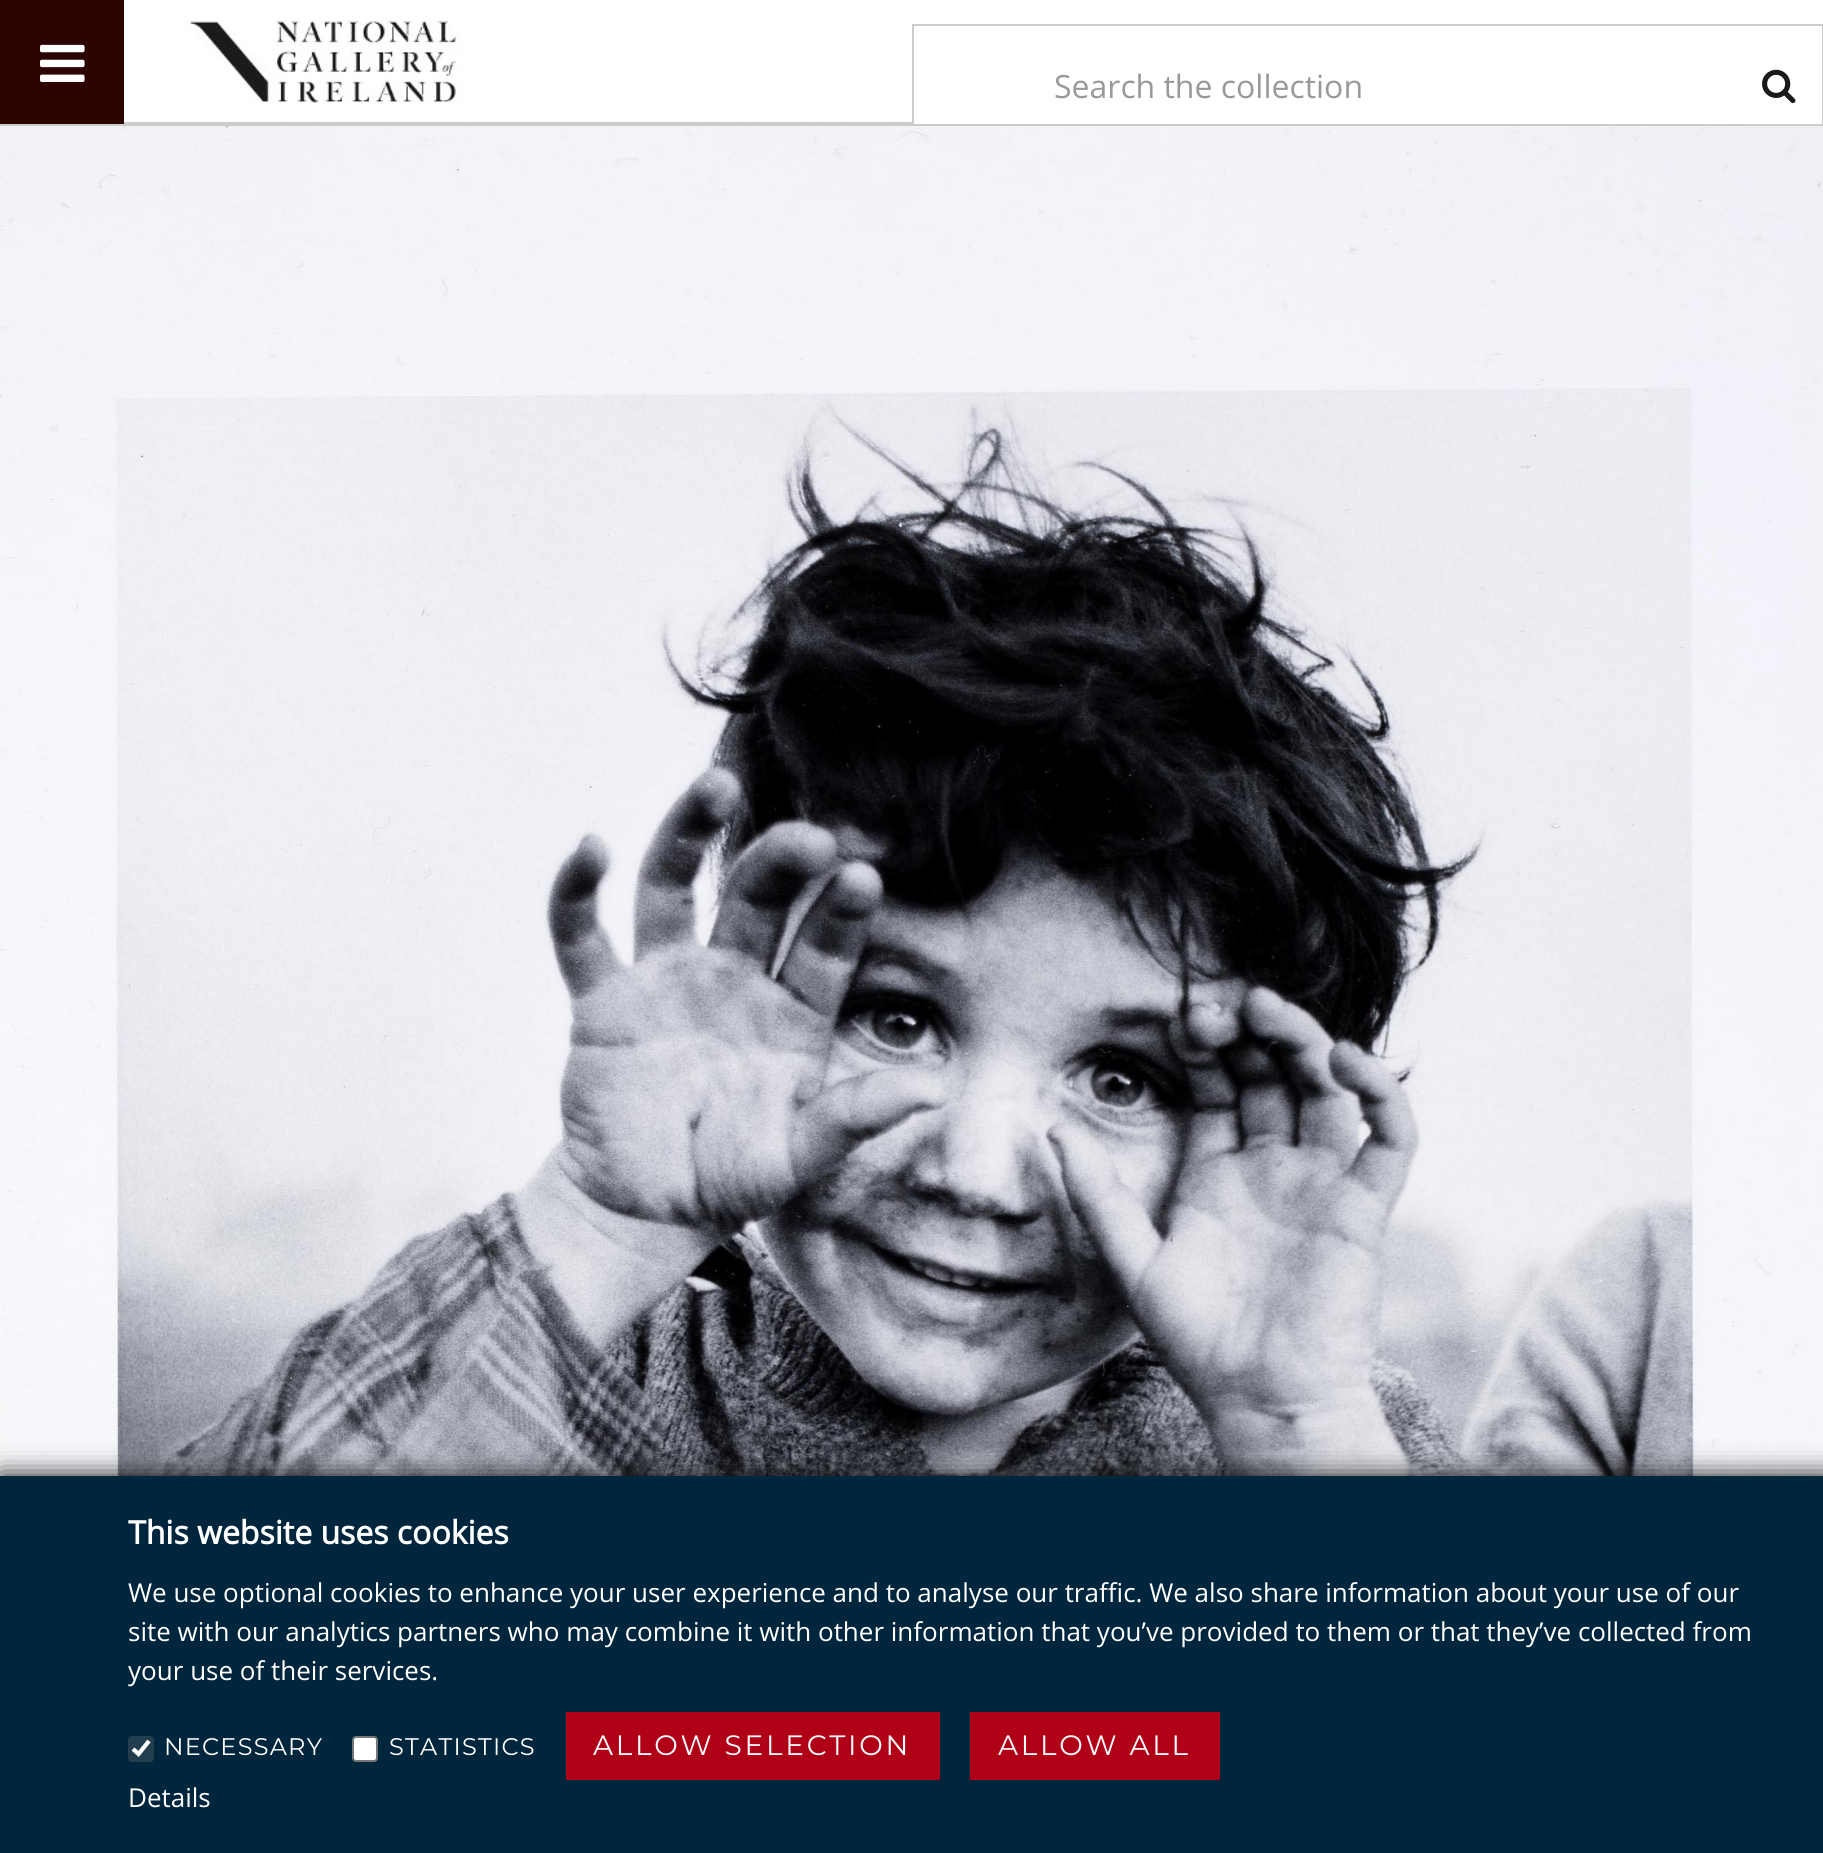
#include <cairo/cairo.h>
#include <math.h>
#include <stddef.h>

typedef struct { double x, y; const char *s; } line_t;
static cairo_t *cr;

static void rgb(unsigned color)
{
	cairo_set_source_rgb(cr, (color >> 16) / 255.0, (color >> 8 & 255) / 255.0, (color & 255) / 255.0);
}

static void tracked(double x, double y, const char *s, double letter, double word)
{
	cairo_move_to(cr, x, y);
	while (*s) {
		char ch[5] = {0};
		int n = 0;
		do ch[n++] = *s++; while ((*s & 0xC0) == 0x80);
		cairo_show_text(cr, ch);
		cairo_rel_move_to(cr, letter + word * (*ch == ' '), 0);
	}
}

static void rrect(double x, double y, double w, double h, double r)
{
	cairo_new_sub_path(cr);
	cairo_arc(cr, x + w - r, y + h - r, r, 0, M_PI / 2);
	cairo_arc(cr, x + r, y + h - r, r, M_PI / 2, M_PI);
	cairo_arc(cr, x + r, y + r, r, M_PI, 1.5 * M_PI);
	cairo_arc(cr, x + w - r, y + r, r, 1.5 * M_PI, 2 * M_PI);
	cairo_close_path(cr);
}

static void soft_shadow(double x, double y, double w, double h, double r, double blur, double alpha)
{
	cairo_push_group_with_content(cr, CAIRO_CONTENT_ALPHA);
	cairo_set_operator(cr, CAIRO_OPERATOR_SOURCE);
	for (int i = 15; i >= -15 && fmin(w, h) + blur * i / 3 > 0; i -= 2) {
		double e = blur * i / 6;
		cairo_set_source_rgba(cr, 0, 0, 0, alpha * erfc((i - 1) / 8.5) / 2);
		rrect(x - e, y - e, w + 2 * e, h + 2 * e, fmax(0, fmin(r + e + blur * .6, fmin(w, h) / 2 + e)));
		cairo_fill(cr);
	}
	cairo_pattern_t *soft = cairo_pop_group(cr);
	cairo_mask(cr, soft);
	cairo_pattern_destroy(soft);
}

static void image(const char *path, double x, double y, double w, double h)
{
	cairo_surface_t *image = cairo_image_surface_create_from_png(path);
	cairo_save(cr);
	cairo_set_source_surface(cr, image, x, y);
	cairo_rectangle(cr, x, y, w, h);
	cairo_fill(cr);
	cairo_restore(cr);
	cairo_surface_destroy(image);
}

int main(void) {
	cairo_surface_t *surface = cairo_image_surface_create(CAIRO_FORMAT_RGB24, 1823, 1853);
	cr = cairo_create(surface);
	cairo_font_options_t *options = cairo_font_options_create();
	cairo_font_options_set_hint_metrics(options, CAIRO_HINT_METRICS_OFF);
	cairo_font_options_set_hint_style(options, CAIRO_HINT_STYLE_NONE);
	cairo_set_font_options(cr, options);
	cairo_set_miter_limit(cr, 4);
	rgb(0xffffff);
	cairo_paint(cr);
	rgb(0xcccccc);
	cairo_rectangle(cr, 124, 122, 788, 2);
	cairo_fill(cr);
	rgb(0x2c0402);
	cairo_rectangle(cr, 0, 0, 124, 124);
	cairo_fill(cr);
	image("img/1.png", 40, 44, 45, 38);
	image("img/2.png", 184, 20, 278, 83);
	cairo_rectangle(cr, 913, 25, 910, 122);
	rgb(0xcccccc);
	cairo_stroke(cr);
	image("img/3.png", 1762, 69, 34, 35);
	cairo_rectangle(cr, 0, 124, 1823, 2);
	cairo_fill(cr);
	image("img/4.png", 0, 126, 1823, 1350);
	rgb(0x121212);
	soft_shadow(0, 1476, 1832, 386, 0, 14, 1);
	rgb(0x00263e);
	cairo_rectangle(cr, 0, 1476, 1823, 377);
	cairo_fill(cr);
	rgb(0x233e4f);
	rrect(128, 1736, 26, 26, 4);
	cairo_fill(cr);
	cairo_new_path(cr);
	cairo_move_to(cr, 133, 1749);
	cairo_line_to(cr, 138.5, 1754);
	cairo_line_to(cr, 149, 1741);
	rgb(0xffffff);
	cairo_set_line_width(cr, 4.2);
	cairo_stroke(cr);
	rrect(353, 1737, 24, 24, 3);
	cairo_fill_preserve(cr);
	rgb(0x767676);
	cairo_set_line_width(cr, 2);
	cairo_stroke(cr);
	rgb(0xb00017);
	cairo_rectangle(cr, 566, 1712, 374, 68);
	cairo_fill(cr);
	cairo_rectangle(cr, 970, 1712, 250, 68);
	cairo_fill(cr);
	cairo_select_font_face(cr, "Open Sans", CAIRO_FONT_SLANT_NORMAL, CAIRO_FONT_WEIGHT_NORMAL);
	cairo_set_font_size(cr, 32);
	rgb(0x999999);
	cairo_move_to(cr, 1054, 98);
	cairo_show_text(cr, "Search the collection");
	cairo_select_font_face(cr, "Open Sans", CAIRO_FONT_SLANT_NORMAL, CAIRO_FONT_WEIGHT_BOLD);
	rgb(0xffffff);
	cairo_move_to(cr, 128, 1544);
	cairo_show_text(cr, "This website uses cookies");
	cairo_select_font_face(cr, "Open Sans", CAIRO_FONT_SLANT_NORMAL, CAIRO_FONT_WEIGHT_NORMAL);
	cairo_set_font_size(cr, 26);
	{
		static const line_t items[] = {
			{128, 1602, "We use optional cookies to enhance your user experience and to analyse our traffic. We also share information about your use of our"},
			{128, 1641, "site with our analytics partners who may combine it with other information that you’ve provided to them or that they’ve collected from"},
			{128, 1680, "your use of their services."},
		};
		for (size_t i = 0; i < sizeof items / sizeof *items; i++) {
			cairo_move_to(cr, items[i].x, items[i].y);
			cairo_show_text(cr, items[i].s);
		}
	}
	cairo_select_font_face(cr, "Montserrat", CAIRO_FONT_SLANT_NORMAL, CAIRO_FONT_WEIGHT_NORMAL);
	cairo_set_font_size(cr, 24);
	tracked(164, 1755, "NECESSARY", 1.25, 0);
	tracked(389, 1755, "STATISTICS", 1.25, 0);
	cairo_set_font_size(cr, 28);
	tracked(593, 1755, "ALLOW SELECTION", 2.75, 0);
	tracked(998, 1755, "ALLOW ALL", 2.75, 0);
	cairo_select_font_face(cr, "Open Sans", CAIRO_FONT_SLANT_NORMAL, CAIRO_FONT_WEIGHT_NORMAL);
	cairo_set_font_size(cr, 26);
	cairo_move_to(cr, 128, 1807);
	cairo_show_text(cr, "Details");
	cairo_surface_write_to_png(surface, "page.png");
	cairo_font_options_destroy(options);
	cairo_destroy(cr);
	cairo_surface_destroy(surface);
	return 0;
}
